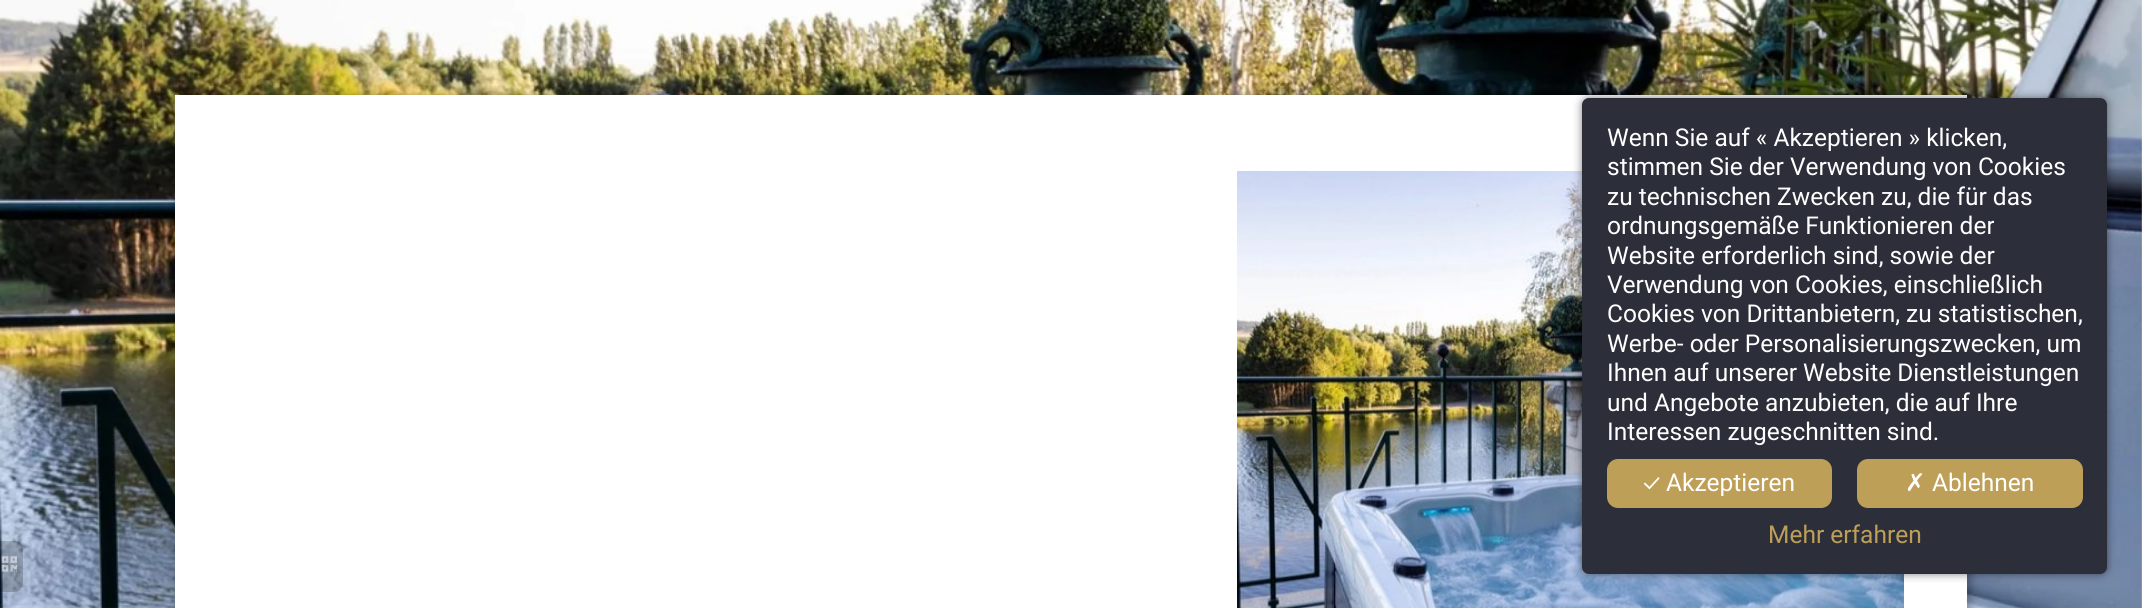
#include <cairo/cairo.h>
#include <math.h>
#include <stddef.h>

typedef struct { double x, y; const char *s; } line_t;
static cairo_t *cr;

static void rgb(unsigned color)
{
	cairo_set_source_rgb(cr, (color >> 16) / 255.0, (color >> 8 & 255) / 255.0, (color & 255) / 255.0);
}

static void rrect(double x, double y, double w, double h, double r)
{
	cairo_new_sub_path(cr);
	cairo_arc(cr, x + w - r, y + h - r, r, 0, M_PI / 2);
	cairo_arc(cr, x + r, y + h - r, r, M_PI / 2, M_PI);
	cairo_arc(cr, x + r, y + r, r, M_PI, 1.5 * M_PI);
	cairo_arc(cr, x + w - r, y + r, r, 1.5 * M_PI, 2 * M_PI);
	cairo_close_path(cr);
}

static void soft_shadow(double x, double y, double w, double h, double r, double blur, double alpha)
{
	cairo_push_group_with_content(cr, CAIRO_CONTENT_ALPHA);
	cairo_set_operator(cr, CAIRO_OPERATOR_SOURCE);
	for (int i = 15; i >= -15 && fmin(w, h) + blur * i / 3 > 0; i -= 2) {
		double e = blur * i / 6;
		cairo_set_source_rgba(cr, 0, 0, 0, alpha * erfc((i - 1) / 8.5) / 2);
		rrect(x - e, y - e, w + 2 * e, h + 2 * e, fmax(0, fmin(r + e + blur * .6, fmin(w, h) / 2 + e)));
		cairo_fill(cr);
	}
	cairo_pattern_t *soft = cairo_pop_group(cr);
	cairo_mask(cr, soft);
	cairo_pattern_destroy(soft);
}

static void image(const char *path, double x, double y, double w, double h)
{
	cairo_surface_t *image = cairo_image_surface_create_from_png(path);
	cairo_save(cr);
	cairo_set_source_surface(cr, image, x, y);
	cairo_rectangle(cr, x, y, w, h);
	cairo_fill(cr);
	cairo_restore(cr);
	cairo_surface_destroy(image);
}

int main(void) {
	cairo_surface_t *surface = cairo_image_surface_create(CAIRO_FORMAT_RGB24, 2142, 608);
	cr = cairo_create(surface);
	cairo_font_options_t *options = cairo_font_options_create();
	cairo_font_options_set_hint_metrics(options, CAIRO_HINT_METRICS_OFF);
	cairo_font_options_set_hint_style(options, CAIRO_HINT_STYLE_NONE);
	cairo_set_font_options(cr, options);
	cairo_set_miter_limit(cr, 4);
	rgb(0xffffff);
	cairo_paint(cr);
	image("img/1.png", 0, 0, 2142, 608);
	rgb(0x000000);
	soft_shadow(175, 95, 1796, 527, 0, 4.5, 0.3);
	rgb(0xffffff);
	cairo_rectangle(cr, 175, 95, 1792, 513);
	cairo_fill(cr);
	image("img/2.png", 1237, 171, 667, 437);
	rgb(0x000000);
	soft_shadow(1582, 98, 525, 476, 7, 4.5, 0.5);
	rgb(0x2c2e3a);
	rrect(1582, 98, 525, 476, 7);
	cairo_fill(cr);
	rgb(0xbe9f58);
	rrect(1607, 459, 225, 49, 11);
	cairo_fill(cr);
	rrect(1857, 459, 226, 49, 11);
	cairo_fill(cr);
	cairo_set_source_rgba(cr, 0, 0, 0, 0.2);
	cairo_new_path(cr);
	cairo_move_to(cr, 0, 541);
	cairo_line_to(cr, 14, 541);
	cairo_curve_to(cr, 19, 541, 23, 545, 23, 550);
	cairo_line_to(cr, 23, 583);
	cairo_curve_to(cr, 23, 588, 19, 592, 14, 592);
	cairo_line_to(cr, 0, 592);
	cairo_close_path(cr);
	cairo_fill(cr);
	image("img/3.png", 1, 556, 17, 16);
	cairo_select_font_face(cr, "Roboto", CAIRO_FONT_SLANT_NORMAL, CAIRO_FONT_WEIGHT_NORMAL);
	cairo_set_font_size(cr, 24.5);
	rgb(0xffffff);
	{
		static const line_t items[] = {
			{1607, 146, "Wenn Sie auf « Akzeptieren » klicken,"},
			{1607, 175, "stimmen Sie der Verwendung von Cookies"},
			{1607, 205, "zu technischen Zwecken zu, die für das"},
			{1607, 234, "ordnungsgemäße Funktionieren der"},
			{1607, 264, "Website erforderlich sind, sowie der"},
			{1607, 293, "Verwendung von Cookies, einschließlich"},
			{1607, 322, "Cookies von Drittanbietern, zu statistischen,"},
			{1607, 352, "Werbe- oder Personalisierungszwecken, um"},
			{1607, 381, "Ihnen auf unserer Website Dienstleistungen"},
			{1607, 411, "und Angebote anzubieten, die auf Ihre"},
			{1607, 440, "Interessen zugeschnitten sind."},
		};
		for (size_t i = 0; i < sizeof items / sizeof *items; i++) {
			cairo_move_to(cr, items[i].x, items[i].y);
			cairo_show_text(cr, items[i].s);
		}
	}
	cairo_select_font_face(cr, "Ubuntu", CAIRO_FONT_SLANT_NORMAL, CAIRO_FONT_WEIGHT_NORMAL);
	cairo_move_to(cr, 1643, 491);
	cairo_show_text(cr, "✓");
	cairo_select_font_face(cr, "Roboto", CAIRO_FONT_SLANT_NORMAL, CAIRO_FONT_WEIGHT_NORMAL);
	cairo_move_to(cr, 1666, 491);
	cairo_show_text(cr, "Akzeptieren");
	cairo_select_font_face(cr, "DejaVu Sans", CAIRO_FONT_SLANT_NORMAL, CAIRO_FONT_WEIGHT_NORMAL);
	cairo_move_to(cr, 1905, 491);
	cairo_show_text(cr, "✗");
	cairo_select_font_face(cr, "Roboto", CAIRO_FONT_SLANT_NORMAL, CAIRO_FONT_WEIGHT_NORMAL);
	cairo_move_to(cr, 1932, 491);
	cairo_show_text(cr, "Ablehnen");
	rgb(0xbe9f58);
	cairo_move_to(cr, 1768, 543);
	cairo_show_text(cr, "Mehr erfahren");
	cairo_surface_write_to_png(surface, "page.png");
	cairo_font_options_destroy(options);
	cairo_destroy(cr);
	cairo_surface_destroy(surface);
	return 0;
}
